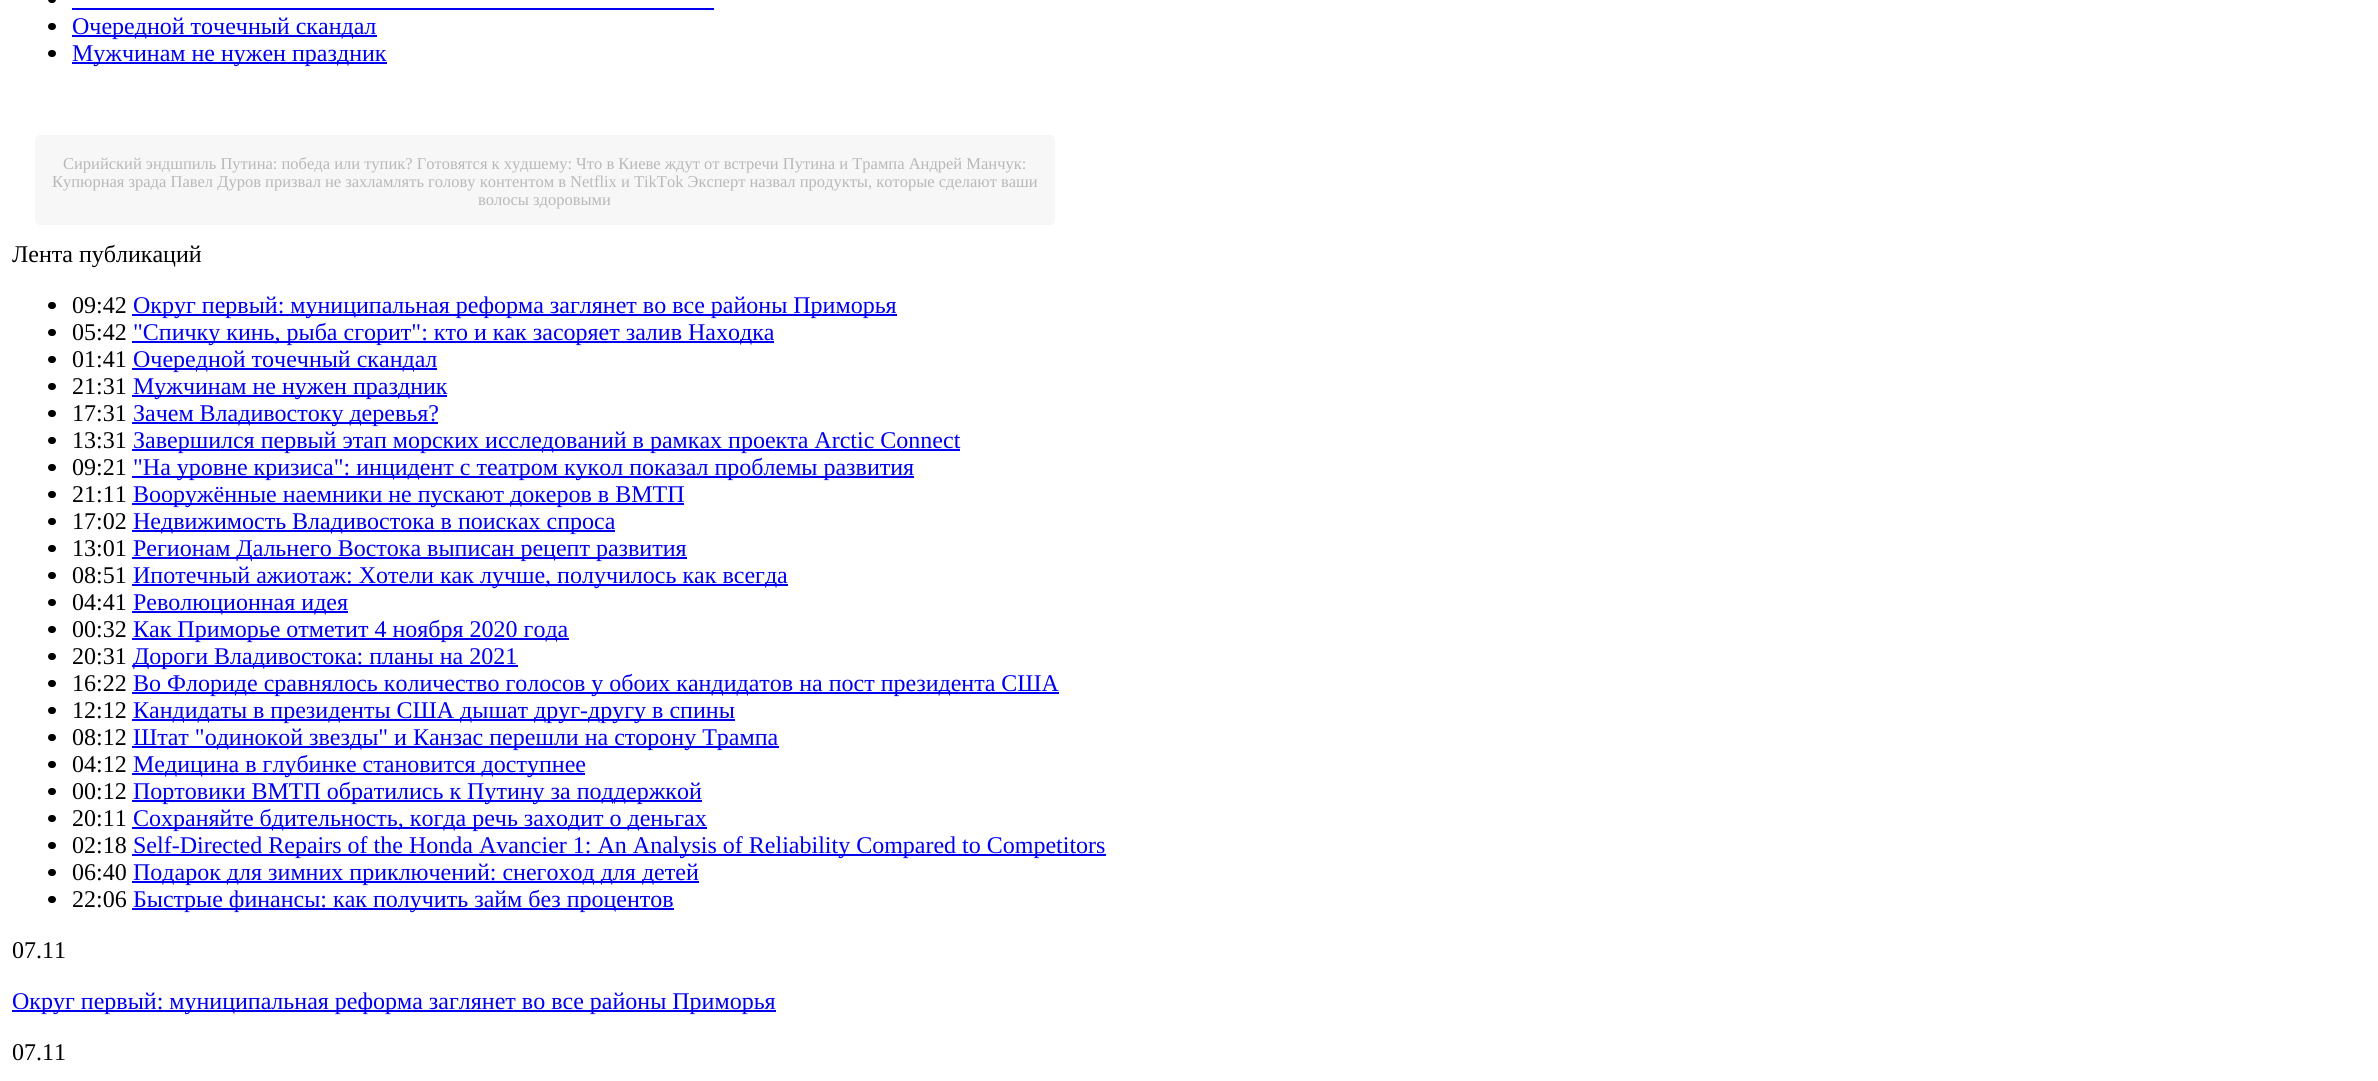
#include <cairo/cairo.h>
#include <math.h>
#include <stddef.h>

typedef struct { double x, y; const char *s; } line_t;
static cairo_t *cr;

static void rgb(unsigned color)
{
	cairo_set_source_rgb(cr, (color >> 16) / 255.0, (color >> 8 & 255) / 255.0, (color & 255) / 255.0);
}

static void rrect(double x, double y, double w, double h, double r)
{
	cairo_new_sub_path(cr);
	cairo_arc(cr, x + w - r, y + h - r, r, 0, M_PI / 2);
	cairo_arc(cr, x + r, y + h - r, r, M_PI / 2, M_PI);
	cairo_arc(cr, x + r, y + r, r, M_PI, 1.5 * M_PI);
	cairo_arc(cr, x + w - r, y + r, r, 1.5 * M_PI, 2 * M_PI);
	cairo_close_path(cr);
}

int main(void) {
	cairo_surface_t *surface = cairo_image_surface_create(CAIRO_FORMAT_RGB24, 2378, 1081);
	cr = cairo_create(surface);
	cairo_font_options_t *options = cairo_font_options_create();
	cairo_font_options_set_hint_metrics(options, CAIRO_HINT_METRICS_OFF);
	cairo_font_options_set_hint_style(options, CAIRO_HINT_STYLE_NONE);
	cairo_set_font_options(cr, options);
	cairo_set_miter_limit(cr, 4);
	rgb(0xffffff);
	cairo_paint(cr);
	rgb(0x000000);
	rrect(48, -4, 8, 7, 3.5);
	cairo_fill(cr);
	rgb(0x0000ee);
	cairo_rectangle(cr, 72, 8, 642, 2);
	cairo_fill(cr);
	rgb(0x000000);
	rrect(48, 23, 8, 7, 3.5);
	cairo_fill(cr);
	rgb(0x0000ee);
	cairo_rectangle(cr, 72, 35, 305, 2);
	cairo_fill(cr);
	rgb(0x000000);
	rrect(48, 50, 8, 7, 3.5);
	cairo_fill(cr);
	rgb(0x0000ee);
	cairo_rectangle(cr, 72, 62, 315, 2);
	cairo_fill(cr);
	rgb(0xf7f7f7);
	rrect(35, 135, 1020, 90, 5);
	cairo_fill(cr);
	rgb(0x000000);
	rrect(48, 302, 8, 7, 3.5);
	cairo_fill(cr);
	rgb(0x0000ee);
	cairo_rectangle(cr, 132, 314, 765, 2);
	cairo_fill(cr);
	rgb(0x000000);
	rrect(48, 329, 8, 7, 3.5);
	cairo_fill(cr);
	rgb(0x0000ee);
	cairo_rectangle(cr, 132, 341, 642, 2);
	cairo_fill(cr);
	rgb(0x000000);
	rrect(48, 356, 8, 7, 3.5);
	cairo_fill(cr);
	rgb(0x0000ee);
	cairo_rectangle(cr, 132, 368, 305, 2);
	cairo_fill(cr);
	rgb(0x000000);
	rrect(48, 383, 8, 7, 3.5);
	cairo_fill(cr);
	rgb(0x0000ee);
	cairo_rectangle(cr, 132, 395, 315, 2);
	cairo_fill(cr);
	rgb(0x000000);
	rrect(48, 410, 8, 7, 3.5);
	cairo_fill(cr);
	rgb(0x0000ee);
	cairo_rectangle(cr, 132, 422, 306, 2);
	cairo_fill(cr);
	rgb(0x000000);
	rrect(48, 437, 8, 7, 3.5);
	cairo_fill(cr);
	rgb(0x0000ee);
	cairo_rectangle(cr, 132, 449, 828, 2);
	cairo_fill(cr);
	rgb(0x000000);
	rrect(48, 464, 8, 7, 3.5);
	cairo_fill(cr);
	rgb(0x0000ee);
	cairo_rectangle(cr, 132, 476, 782, 2);
	cairo_fill(cr);
	rgb(0x000000);
	rrect(48, 491, 8, 7, 3.5);
	cairo_fill(cr);
	rgb(0x0000ee);
	cairo_rectangle(cr, 132, 503, 552, 2);
	cairo_fill(cr);
	rgb(0x000000);
	rrect(48, 518, 8, 7, 3.5);
	cairo_fill(cr);
	rgb(0x0000ee);
	cairo_rectangle(cr, 132, 530, 483, 2);
	cairo_fill(cr);
	rgb(0x000000);
	rrect(48, 545, 8, 7, 3.5);
	cairo_fill(cr);
	rgb(0x0000ee);
	cairo_rectangle(cr, 132, 557, 555, 2);
	cairo_fill(cr);
	rgb(0x000000);
	rrect(48, 572, 8, 7, 3.5);
	cairo_fill(cr);
	rgb(0x0000ee);
	cairo_rectangle(cr, 132, 584, 656, 2);
	cairo_fill(cr);
	rgb(0x000000);
	rrect(48, 599, 8, 7, 3.5);
	cairo_fill(cr);
	rgb(0x0000ee);
	cairo_rectangle(cr, 132, 611, 216, 2);
	cairo_fill(cr);
	rgb(0x000000);
	rrect(48, 626, 8, 7, 3.5);
	cairo_fill(cr);
	rgb(0x0000ee);
	cairo_rectangle(cr, 132, 638, 437, 2);
	cairo_fill(cr);
	rgb(0x000000);
	rrect(48, 653, 8, 7, 3.5);
	cairo_fill(cr);
	rgb(0x0000ee);
	cairo_rectangle(cr, 132, 665, 386, 2);
	cairo_fill(cr);
	rgb(0x000000);
	rrect(48, 680, 8, 7, 3.5);
	cairo_fill(cr);
	rgb(0x0000ee);
	cairo_rectangle(cr, 132, 692, 927, 2);
	cairo_fill(cr);
	rgb(0x000000);
	rrect(48, 707, 8, 7, 3.5);
	cairo_fill(cr);
	rgb(0x0000ee);
	cairo_rectangle(cr, 132, 719, 603, 2);
	cairo_fill(cr);
	rgb(0x000000);
	rrect(48, 734, 8, 7, 3.5);
	cairo_fill(cr);
	rgb(0x0000ee);
	cairo_rectangle(cr, 132, 746, 647, 2);
	cairo_fill(cr);
	rgb(0x000000);
	rrect(48, 761, 8, 7, 3.5);
	cairo_fill(cr);
	rgb(0x0000ee);
	cairo_rectangle(cr, 132, 773, 453, 2);
	cairo_fill(cr);
	rgb(0x000000);
	rrect(48, 788, 8, 7, 3.5);
	cairo_fill(cr);
	rgb(0x0000ee);
	cairo_rectangle(cr, 132, 800, 570, 2);
	cairo_fill(cr);
	rgb(0x000000);
	rrect(48, 815, 8, 7, 3.5);
	cairo_fill(cr);
	rgb(0x0000ee);
	cairo_rectangle(cr, 132, 827, 575, 2);
	cairo_fill(cr);
	rgb(0x000000);
	rrect(48, 842, 8, 7, 3.5);
	cairo_fill(cr);
	rgb(0x0000ee);
	cairo_rectangle(cr, 132, 854, 974, 2);
	cairo_fill(cr);
	rgb(0x000000);
	rrect(48, 869, 8, 7, 3.5);
	cairo_fill(cr);
	rgb(0x0000ee);
	cairo_rectangle(cr, 132, 881, 567, 2);
	cairo_fill(cr);
	rgb(0x000000);
	rrect(48, 896, 8, 7, 3.5);
	cairo_fill(cr);
	rgb(0x0000ee);
	cairo_rectangle(cr, 132, 908, 542, 2);
	cairo_fill(cr);
	cairo_rectangle(cr, 12, 1010, 764, 2);
	cairo_fill(cr);
	cairo_select_font_face(cr, "Liberation Serif", CAIRO_FONT_SLANT_NORMAL, CAIRO_FONT_WEIGHT_NORMAL);
	cairo_set_font_size(cr, 24);
	cairo_move_to(cr, 72, 34);
	cairo_show_text(cr, "Очередной точечный скандал");
	cairo_move_to(cr, 72, 61);
	cairo_show_text(cr, "Мужчинам не нужен праздник");
	cairo_set_font_size(cr, 16.5);
	rgb(0xb8b8b8);
	{
		static const line_t items[] = {
			{63, 169, "Сирийский эндшпиль Путина: победа или тупик? Готовятся к худшему: Что в Киеве ждут от встречи Путина и Трампа Андрей Манчук:"},
			{52, 187, "Купюрная зрада Павел Дуров призвал не захламлять голову контентом в Netflix и TikTok Эксперт назвал продукты, которые сделают ваши"},
			{478, 205, "волосы здоровыми"},
		};
		for (size_t i = 0; i < sizeof items / sizeof *items; i++) {
			cairo_move_to(cr, items[i].x, items[i].y);
			cairo_show_text(cr, items[i].s);
		}
	}
	cairo_set_font_size(cr, 24);
	rgb(0x000000);
	cairo_move_to(cr, 12, 262);
	cairo_show_text(cr, "Лента публикаций");
	cairo_move_to(cr, 72, 313);
	cairo_show_text(cr, "09:42");
	rgb(0x0000ee);
	cairo_move_to(cr, 133, 313);
	cairo_show_text(cr, "Округ первый: муниципальная реформа заглянет во все районы Приморья");
	rgb(0x000000);
	cairo_move_to(cr, 72, 340);
	cairo_show_text(cr, "05:42");
	rgb(0x0000ee);
	cairo_move_to(cr, 133, 340);
	cairo_show_text(cr, "\"Спичку кинь, рыба сгорит\": кто и как засоряет залив Находка");
	rgb(0x000000);
	cairo_move_to(cr, 72, 367);
	cairo_show_text(cr, "01:41");
	rgb(0x0000ee);
	cairo_move_to(cr, 133, 367);
	cairo_show_text(cr, "Очередной точечный скандал");
	rgb(0x000000);
	cairo_move_to(cr, 72, 394);
	cairo_show_text(cr, "21:31");
	rgb(0x0000ee);
	cairo_move_to(cr, 133, 394);
	cairo_show_text(cr, "Мужчинам не нужен праздник");
	rgb(0x000000);
	cairo_move_to(cr, 72, 421);
	cairo_show_text(cr, "17:31");
	rgb(0x0000ee);
	cairo_move_to(cr, 133, 421);
	cairo_show_text(cr, "Зачем Владивостоку деревья?");
	rgb(0x000000);
	cairo_move_to(cr, 72, 448);
	cairo_show_text(cr, "13:31");
	rgb(0x0000ee);
	cairo_move_to(cr, 133, 448);
	cairo_show_text(cr, "Завершился первый этап морских исследований в рамках проекта Arctic Connect");
	rgb(0x000000);
	cairo_move_to(cr, 72, 475);
	cairo_show_text(cr, "09:21");
	rgb(0x0000ee);
	cairo_move_to(cr, 133, 475);
	cairo_show_text(cr, "\"На уровне кризиса\": инцидент с театром кукол показал проблемы развития");
	rgb(0x000000);
	cairo_move_to(cr, 72, 502);
	cairo_show_text(cr, "21:11");
	rgb(0x0000ee);
	cairo_move_to(cr, 133, 502);
	cairo_show_text(cr, "Вооружённые наемники не пускают докеров в ВМТП");
	rgb(0x000000);
	cairo_move_to(cr, 72, 529);
	cairo_show_text(cr, "17:02");
	rgb(0x0000ee);
	cairo_move_to(cr, 133, 529);
	cairo_show_text(cr, "Недвижимость Владивостока в поисках спроса");
	rgb(0x000000);
	cairo_move_to(cr, 72, 556);
	cairo_show_text(cr, "13:01");
	rgb(0x0000ee);
	cairo_move_to(cr, 133, 556);
	cairo_show_text(cr, "Регионам Дальнего Востока выписан рецепт развития");
	rgb(0x000000);
	cairo_move_to(cr, 72, 583);
	cairo_show_text(cr, "08:51");
	rgb(0x0000ee);
	cairo_move_to(cr, 133, 583);
	cairo_show_text(cr, "Ипотечный ажиотаж: Хотели как лучше, получилось как всегда");
	rgb(0x000000);
	cairo_move_to(cr, 72, 610);
	cairo_show_text(cr, "04:41");
	rgb(0x0000ee);
	cairo_move_to(cr, 133, 610);
	cairo_show_text(cr, "Революционная идея");
	rgb(0x000000);
	cairo_move_to(cr, 72, 637);
	cairo_show_text(cr, "00:32");
	rgb(0x0000ee);
	cairo_move_to(cr, 133, 637);
	cairo_show_text(cr, "Как Приморье отметит 4 ноября 2020 года");
	rgb(0x000000);
	cairo_move_to(cr, 72, 664);
	cairo_show_text(cr, "20:31");
	rgb(0x0000ee);
	cairo_move_to(cr, 133, 664);
	cairo_show_text(cr, "Дороги Владивостока: планы на 2021");
	rgb(0x000000);
	cairo_move_to(cr, 72, 691);
	cairo_show_text(cr, "16:22");
	rgb(0x0000ee);
	cairo_move_to(cr, 133, 691);
	cairo_show_text(cr, "Во Флориде сравнялось количество голосов у обоих кандидатов на пост президента США");
	rgb(0x000000);
	cairo_move_to(cr, 72, 718);
	cairo_show_text(cr, "12:12");
	rgb(0x0000ee);
	cairo_move_to(cr, 133, 718);
	cairo_show_text(cr, "Кандидаты в президенты США дышат друг-другу в спины");
	rgb(0x000000);
	cairo_move_to(cr, 72, 745);
	cairo_show_text(cr, "08:12");
	rgb(0x0000ee);
	cairo_move_to(cr, 133, 745);
	cairo_show_text(cr, "Штат \"одинокой звезды\" и Канзас перешли на сторону Трампа");
	rgb(0x000000);
	cairo_move_to(cr, 72, 772);
	cairo_show_text(cr, "04:12");
	rgb(0x0000ee);
	cairo_move_to(cr, 133, 772);
	cairo_show_text(cr, "Медицина в глубинке становится доступнее");
	rgb(0x000000);
	cairo_move_to(cr, 72, 799);
	cairo_show_text(cr, "00:12");
	rgb(0x0000ee);
	cairo_move_to(cr, 133, 799);
	cairo_show_text(cr, "Портовики ВМТП обратились к Путину за поддержкой");
	rgb(0x000000);
	cairo_move_to(cr, 72, 826);
	cairo_show_text(cr, "20:11");
	rgb(0x0000ee);
	cairo_move_to(cr, 133, 826);
	cairo_show_text(cr, "Сохраняйте бдительность, когда речь заходит о деньгах");
	rgb(0x000000);
	cairo_move_to(cr, 72, 853);
	cairo_show_text(cr, "02:18");
	rgb(0x0000ee);
	cairo_move_to(cr, 133, 853);
	cairo_show_text(cr, "Self-Directed Repairs of the Honda Avancier 1: An Analysis of Reliability Compared to Competitors");
	rgb(0x000000);
	cairo_move_to(cr, 72, 880);
	cairo_show_text(cr, "06:40");
	rgb(0x0000ee);
	cairo_move_to(cr, 133, 880);
	cairo_show_text(cr, "Подарок для зимних приключений: снегоход для детей");
	rgb(0x000000);
	cairo_move_to(cr, 72, 907);
	cairo_show_text(cr, "22:06");
	rgb(0x0000ee);
	cairo_move_to(cr, 133, 907);
	cairo_show_text(cr, "Быстрые финансы: как получить займ без процентов");
	rgb(0x000000);
	cairo_move_to(cr, 12, 958);
	cairo_show_text(cr, "07.11");
	rgb(0x0000ee);
	cairo_move_to(cr, 12, 1009);
	cairo_show_text(cr, "Округ первый: муниципальная реформа заглянет во все районы Приморья");
	rgb(0x000000);
	cairo_move_to(cr, 12, 1060);
	cairo_show_text(cr, "07.11");
	cairo_surface_write_to_png(surface, "page.png");
	cairo_font_options_destroy(options);
	cairo_destroy(cr);
	cairo_surface_destroy(surface);
	return 0;
}
